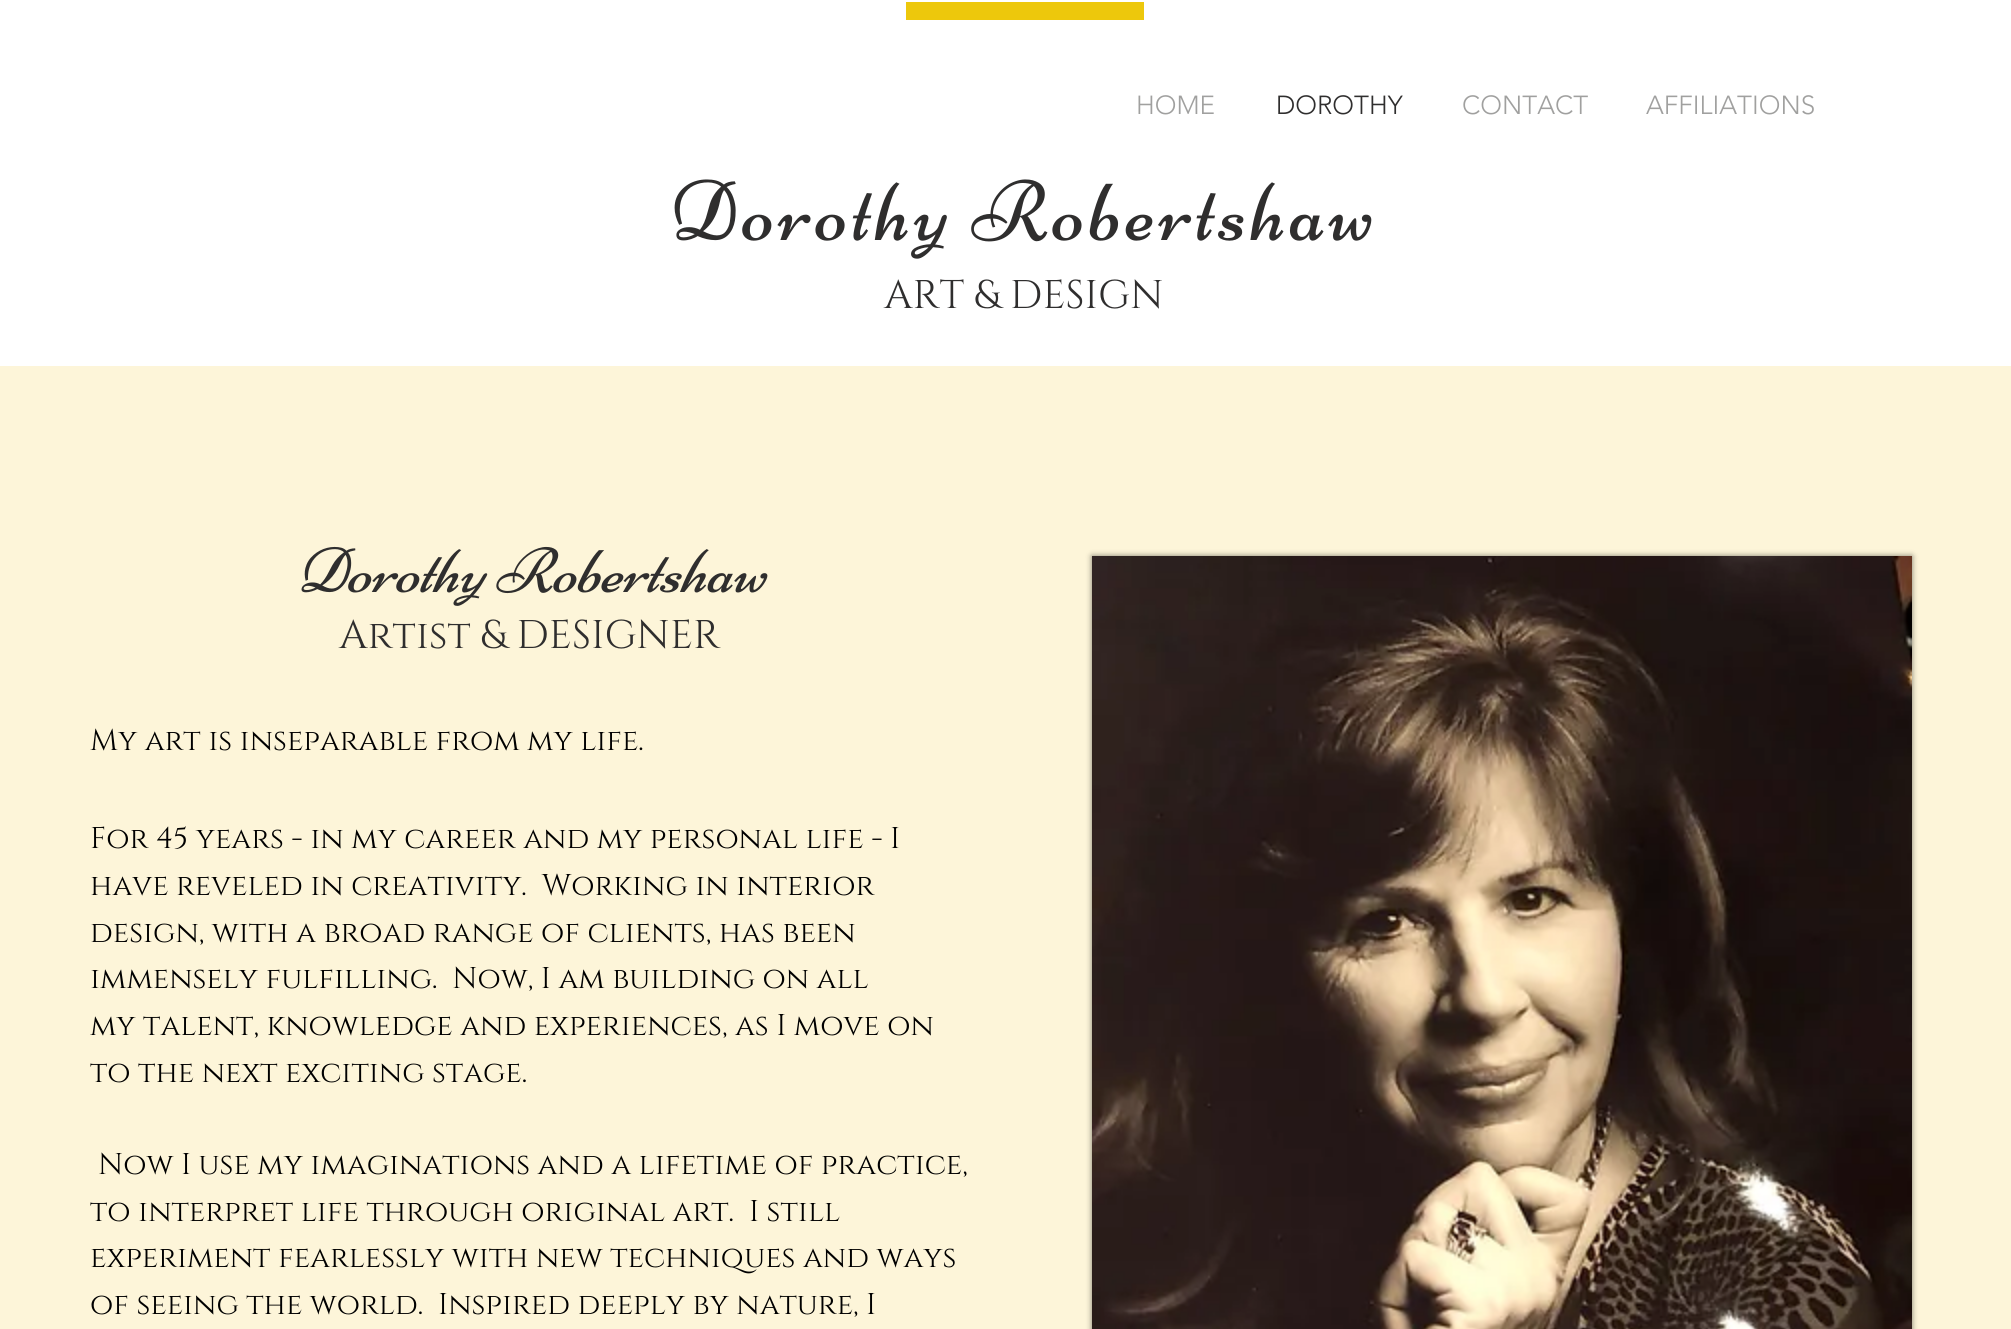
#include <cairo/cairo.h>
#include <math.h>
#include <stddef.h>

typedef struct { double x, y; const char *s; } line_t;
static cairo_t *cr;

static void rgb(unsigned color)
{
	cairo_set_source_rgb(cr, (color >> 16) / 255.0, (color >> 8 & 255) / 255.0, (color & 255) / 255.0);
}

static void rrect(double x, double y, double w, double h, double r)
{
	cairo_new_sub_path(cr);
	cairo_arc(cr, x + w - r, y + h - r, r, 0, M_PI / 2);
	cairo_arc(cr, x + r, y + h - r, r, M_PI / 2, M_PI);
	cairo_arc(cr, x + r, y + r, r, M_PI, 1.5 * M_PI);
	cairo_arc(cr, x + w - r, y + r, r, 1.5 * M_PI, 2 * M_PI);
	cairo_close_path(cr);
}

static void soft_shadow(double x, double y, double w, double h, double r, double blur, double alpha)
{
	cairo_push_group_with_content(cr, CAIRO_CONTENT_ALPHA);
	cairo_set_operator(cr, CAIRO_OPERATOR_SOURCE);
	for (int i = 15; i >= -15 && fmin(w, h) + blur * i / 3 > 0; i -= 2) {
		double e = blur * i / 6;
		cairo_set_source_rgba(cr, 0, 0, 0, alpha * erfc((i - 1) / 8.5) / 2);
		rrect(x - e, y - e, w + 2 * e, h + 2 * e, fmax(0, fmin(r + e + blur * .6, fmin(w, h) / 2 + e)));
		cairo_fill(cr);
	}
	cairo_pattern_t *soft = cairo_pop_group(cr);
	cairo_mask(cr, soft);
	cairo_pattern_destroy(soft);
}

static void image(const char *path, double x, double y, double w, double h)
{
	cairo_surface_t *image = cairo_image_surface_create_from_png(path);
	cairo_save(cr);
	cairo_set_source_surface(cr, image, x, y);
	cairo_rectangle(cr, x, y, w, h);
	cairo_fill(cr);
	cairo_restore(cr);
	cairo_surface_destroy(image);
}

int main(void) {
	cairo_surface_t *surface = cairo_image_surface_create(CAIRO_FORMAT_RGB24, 2011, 1329);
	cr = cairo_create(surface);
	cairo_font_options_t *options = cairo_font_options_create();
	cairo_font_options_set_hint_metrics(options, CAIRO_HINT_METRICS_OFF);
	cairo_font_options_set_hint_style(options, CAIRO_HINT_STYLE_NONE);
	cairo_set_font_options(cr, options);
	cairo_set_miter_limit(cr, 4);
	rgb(0xfdf5d9);
	cairo_paint(cr);
	rgb(0xffffff);
	cairo_rectangle(cr, 0, 0, 2011, 366);
	cairo_fill(cr);
	rgb(0xedc80c);
	cairo_rectangle(cr, 906, 2, 238, 18);
	cairo_fill(cr);
	image("img/1.png", 674, 179, 698, 80);
	image("img/2.png", 301, 546, 467, 60);
	rgb(0x000000);
	soft_shadow(1092, 556, 820, 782, 0, 3, 0.5);
	image("img/3.png", 1092, 556, 820, 773);
	cairo_select_font_face(cr, "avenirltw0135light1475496 Light", CAIRO_FONT_SLANT_NORMAL, CAIRO_FONT_WEIGHT_NORMAL);
	cairo_set_font_size(cr, 26);
	rgb(0xa0a09f);
	cairo_move_to(cr, 1136, 114);
	cairo_show_text(cr, "HOME");
	rgb(0x2f2e2e);
	cairo_move_to(cr, 1276, 114);
	cairo_show_text(cr, "DOROTHY");
	rgb(0xa0a09f);
	cairo_move_to(cr, 1462, 114);
	cairo_show_text(cr, "CONTACT");
	cairo_move_to(cr, 1646, 114);
	cairo_show_text(cr, "AFFILIATIONS");
	cairo_select_font_face(cr, "Cinzel", CAIRO_FONT_SLANT_NORMAL, CAIRO_FONT_WEIGHT_NORMAL);
	cairo_set_font_size(cr, 40);
	rgb(0x2f2e2e);
	cairo_move_to(cr, 884, 308);
	cairo_show_text(cr, "ART & DESIGN");
	cairo_move_to(cr, 339, 648);
	cairo_show_text(cr, "Artist & DESIGNER");
	cairo_set_font_size(cr, 30);
	rgb(0x000000);
	{
		static const line_t items[] = {
			{90, 750, "My art is inseparable from my life."},
			{90, 848, "For 45 years - in my career and my personal life - I"},
			{90, 895, "have reveled in creativity.  Working in interior"},
			{90, 942, "design, with a broad range of clients, has been"},
			{90, 988, "immensely fulfilling.  Now, I am building on all"},
			{90, 1035, "my talent, knowledge and experiences, as I move on"},
			{90, 1082, "to the next exciting stage."},
			{98, 1174, "Now I use my imaginations and a lifetime of practice,"},
			{90, 1221, "to interpret life through original art.  I still"},
			{90, 1267, "experiment fearlessly with new techniques and ways"},
			{90, 1314, "of seeing the world."},
			{438, 1314, "Inspired deeply by nature, I"},
		};
		for (size_t i = 0; i < sizeof items / sizeof *items; i++) {
			cairo_move_to(cr, items[i].x, items[i].y);
			cairo_show_text(cr, items[i].s);
		}
	}
	cairo_surface_write_to_png(surface, "page.png");
	cairo_font_options_destroy(options);
	cairo_destroy(cr);
	cairo_surface_destroy(surface);
	return 0;
}
